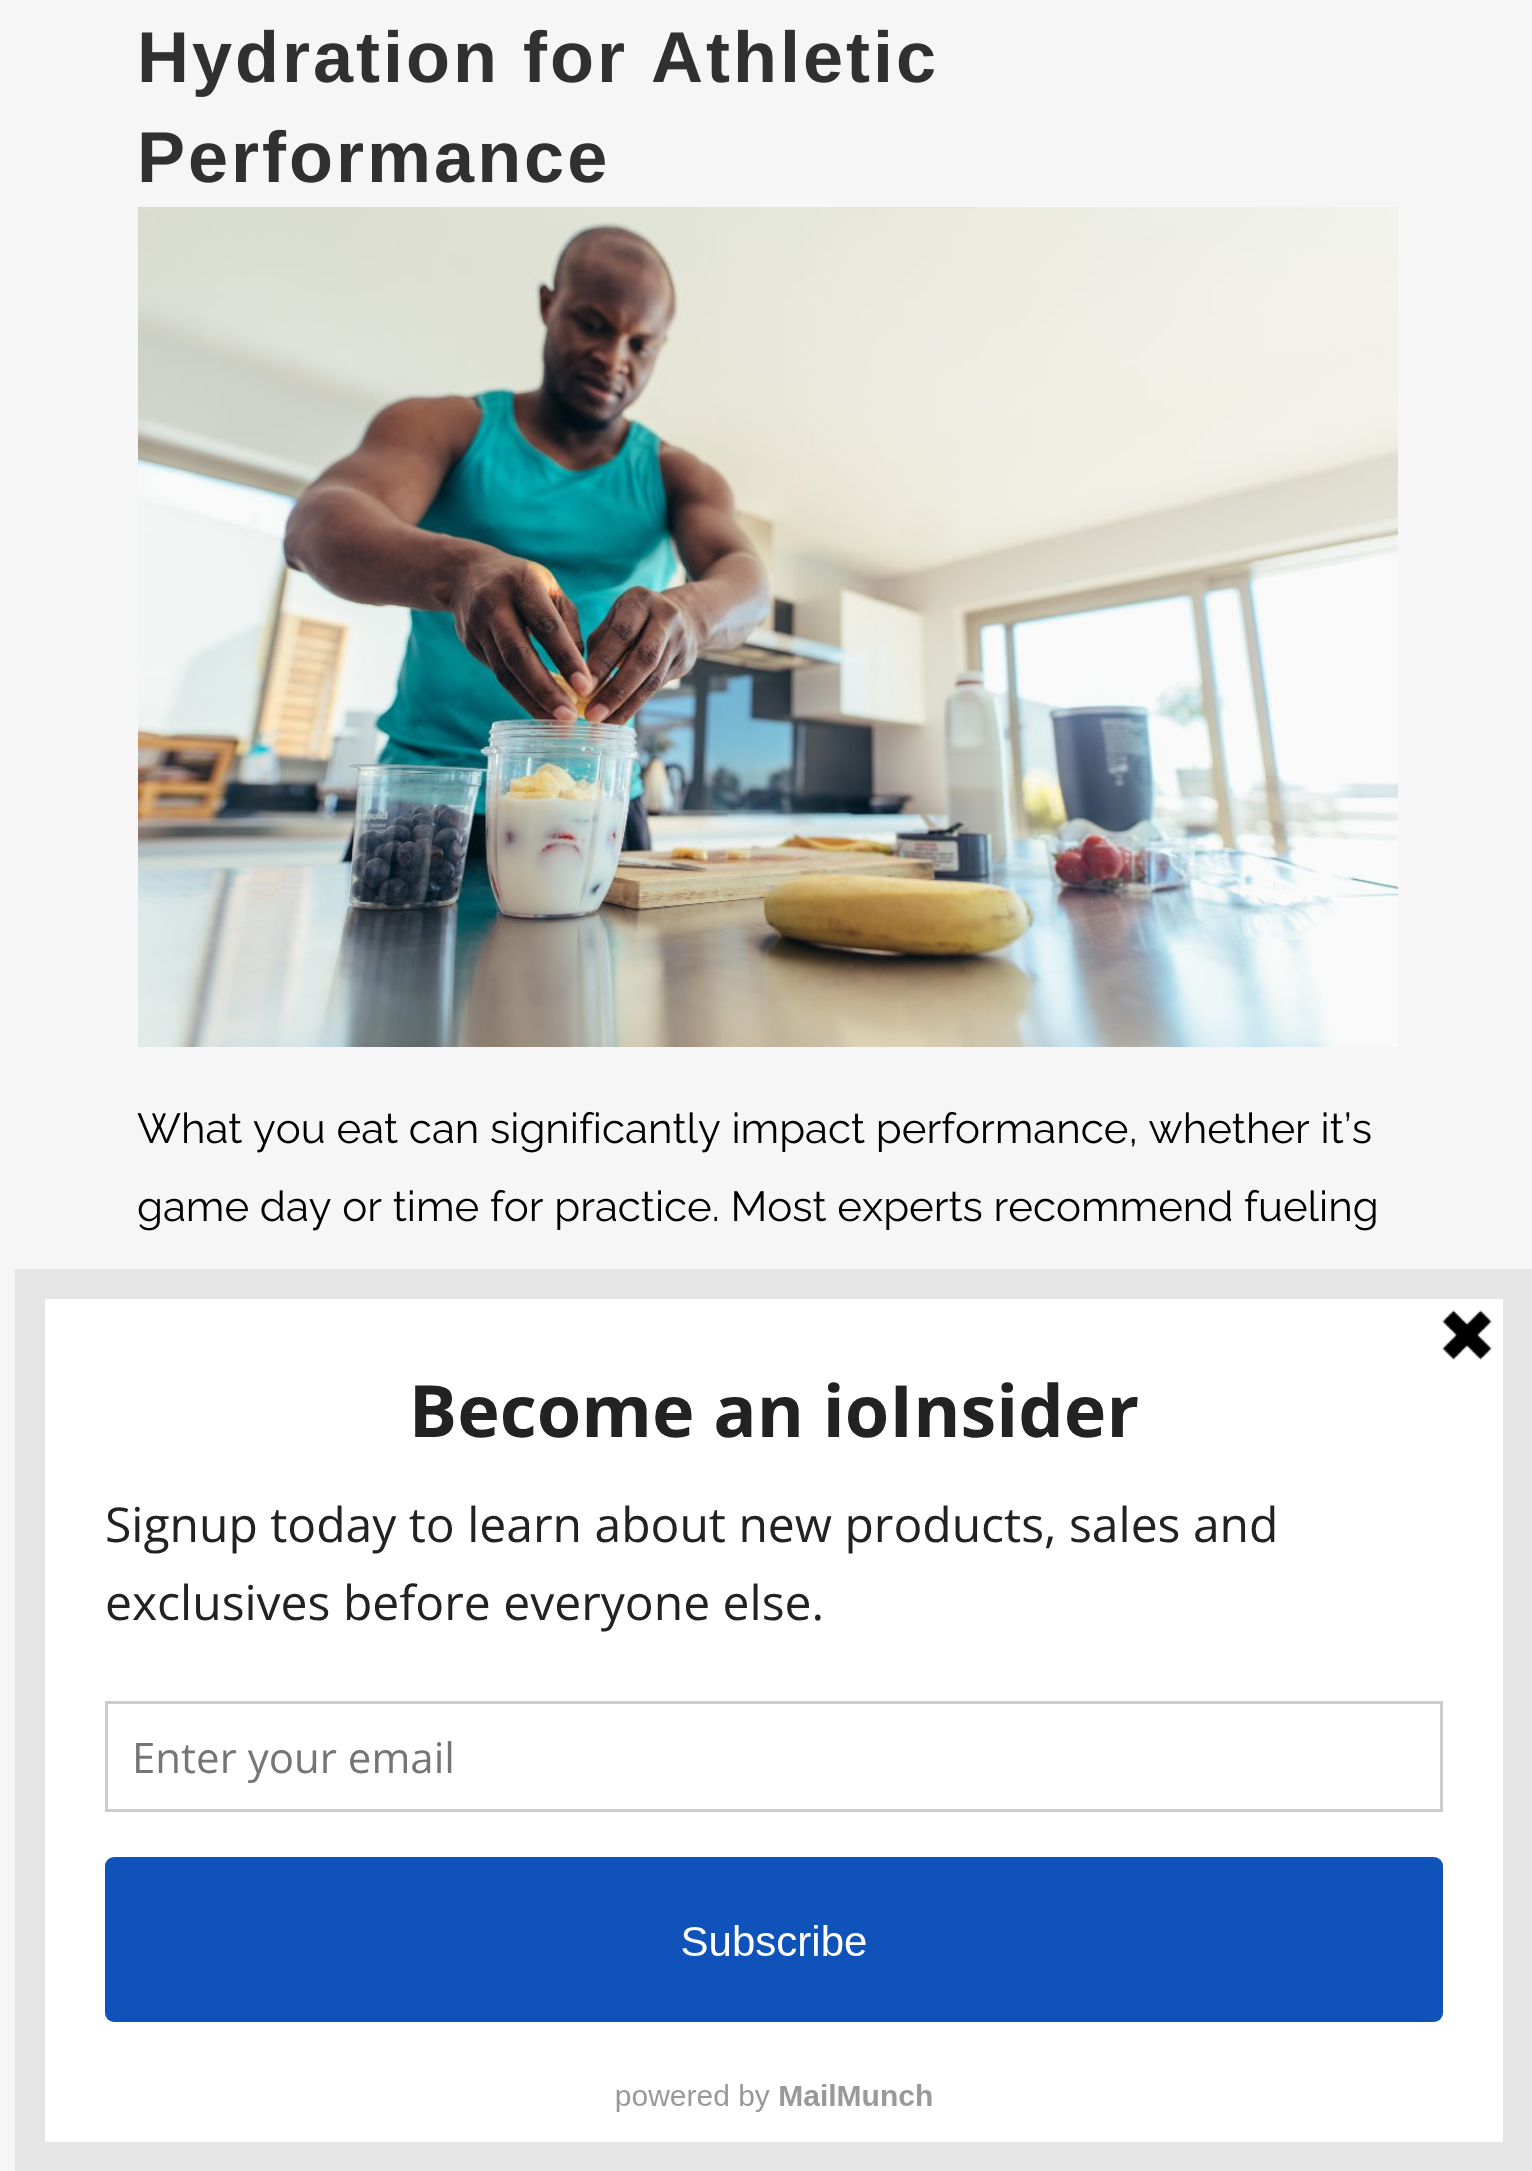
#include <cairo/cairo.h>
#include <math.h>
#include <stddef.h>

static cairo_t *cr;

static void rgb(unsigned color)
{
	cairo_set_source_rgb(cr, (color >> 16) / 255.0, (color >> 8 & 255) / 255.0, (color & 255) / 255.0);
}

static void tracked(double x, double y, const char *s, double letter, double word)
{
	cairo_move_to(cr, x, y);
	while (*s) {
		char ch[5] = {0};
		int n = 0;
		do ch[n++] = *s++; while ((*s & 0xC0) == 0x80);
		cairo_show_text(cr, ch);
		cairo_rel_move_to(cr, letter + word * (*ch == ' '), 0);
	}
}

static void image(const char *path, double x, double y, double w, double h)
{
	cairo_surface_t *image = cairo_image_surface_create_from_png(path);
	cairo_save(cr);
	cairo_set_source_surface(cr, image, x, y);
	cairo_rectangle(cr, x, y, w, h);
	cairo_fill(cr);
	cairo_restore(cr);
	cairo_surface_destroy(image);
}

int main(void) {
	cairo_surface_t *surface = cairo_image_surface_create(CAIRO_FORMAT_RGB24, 1532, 2171);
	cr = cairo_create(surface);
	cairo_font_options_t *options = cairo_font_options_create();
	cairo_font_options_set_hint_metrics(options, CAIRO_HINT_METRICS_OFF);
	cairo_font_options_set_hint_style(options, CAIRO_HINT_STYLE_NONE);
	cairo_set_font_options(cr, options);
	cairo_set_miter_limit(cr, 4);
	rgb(0xf6f6f6);
	cairo_paint(cr);
	image("img/1.png", 138, 207, 1260, 840);
	image("img/2.png", 15, 1269, 1517, 902);
	cairo_select_font_face(cr, "Liberation Sans", CAIRO_FONT_SLANT_NORMAL, CAIRO_FONT_WEIGHT_BOLD);
	cairo_set_font_size(cr, 72);
	rgb(0x303030);
	tracked(137, 82, "Hydration for Athletic", 3, 0);
	tracked(137, 182, "Performance", 3, 0);
	cairo_select_font_face(cr, "Raleway Thin", CAIRO_FONT_SLANT_NORMAL, CAIRO_FONT_WEIGHT_NORMAL);
	cairo_set_font_size(cr, 42);
	rgb(0x000000);
	cairo_move_to(cr, 137, 1143);
	cairo_show_text(cr, "What you eat can significantly impact performance, whether it’s");
	cairo_move_to(cr, 137, 1221);
	cairo_show_text(cr, "game day or time for practice. Most experts recommend fueling");
	cairo_surface_write_to_png(surface, "page.png");
	cairo_font_options_destroy(options);
	cairo_destroy(cr);
	cairo_surface_destroy(surface);
	return 0;
}
